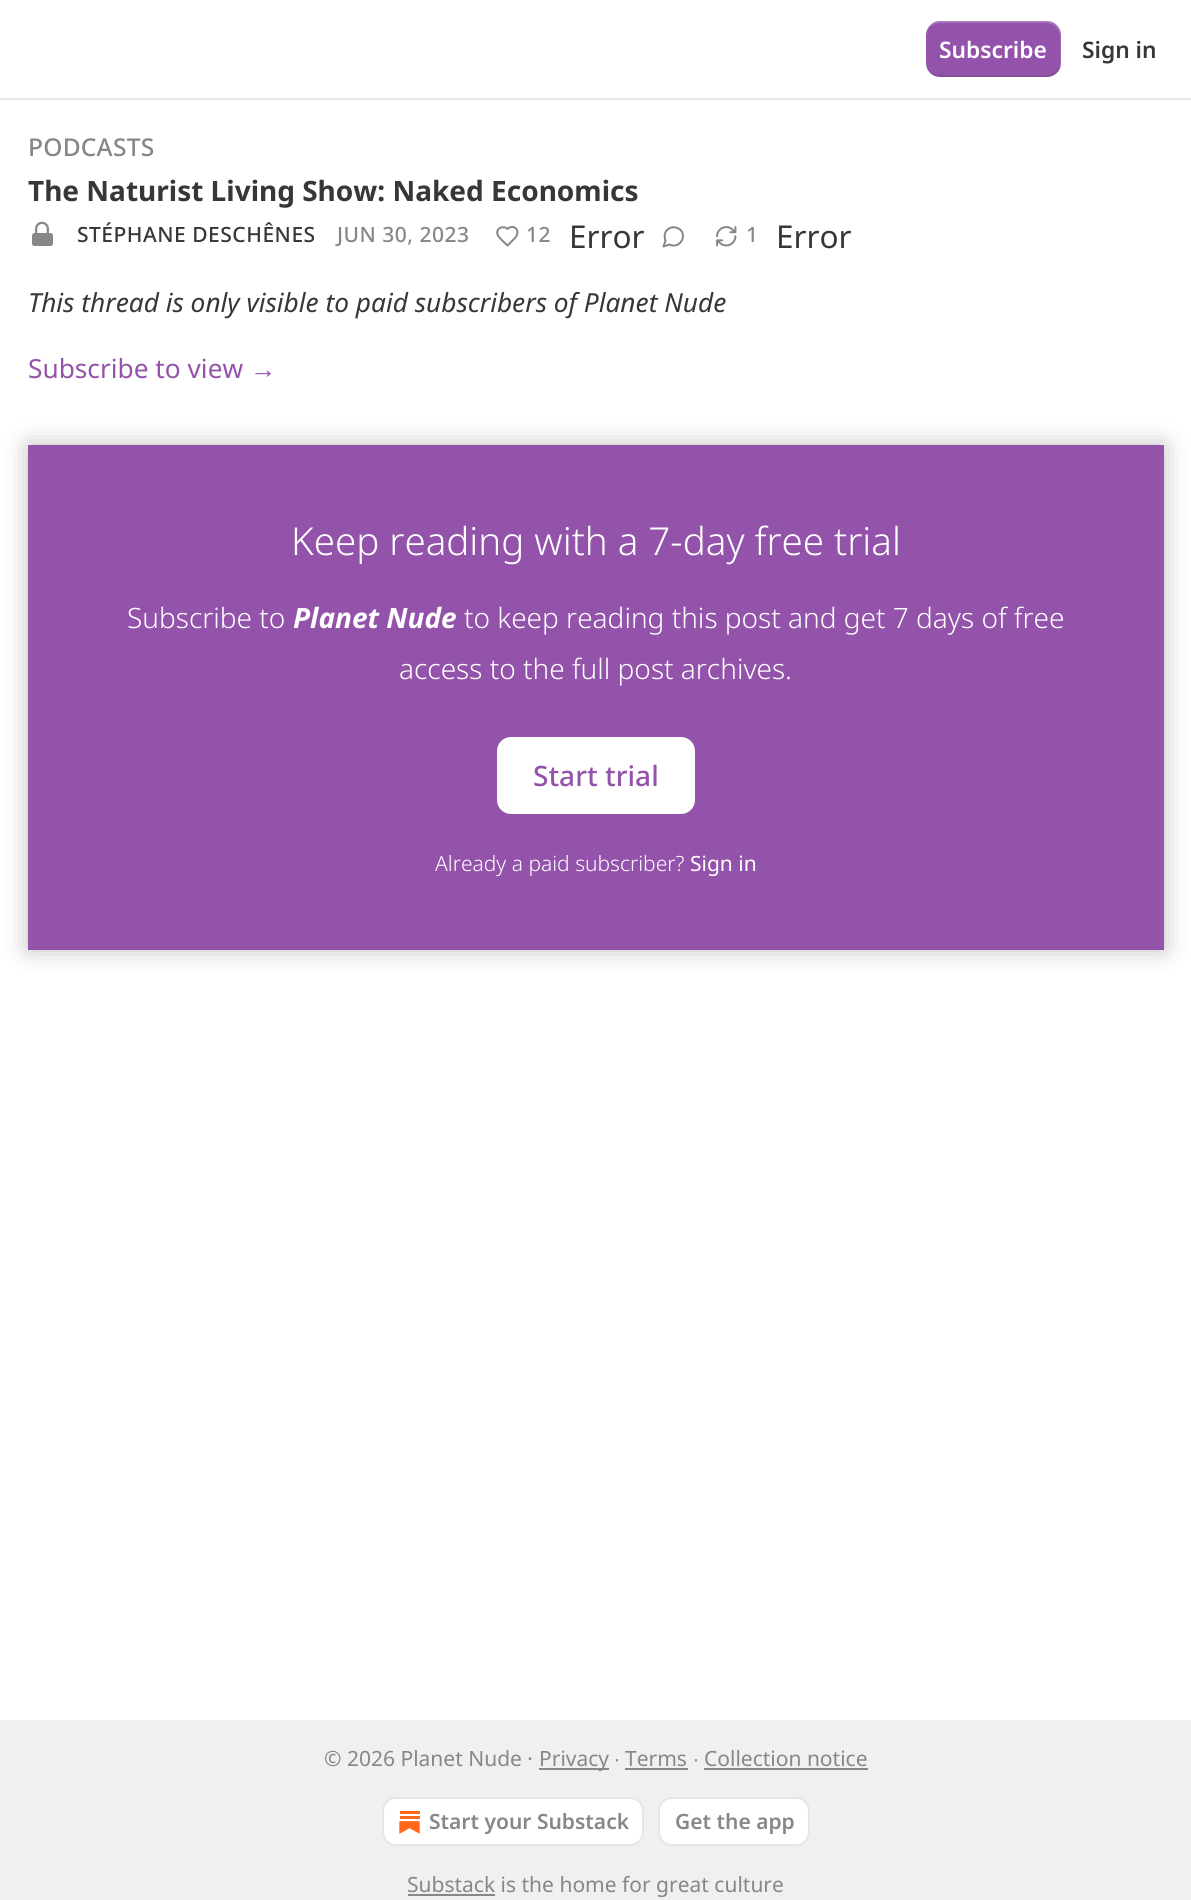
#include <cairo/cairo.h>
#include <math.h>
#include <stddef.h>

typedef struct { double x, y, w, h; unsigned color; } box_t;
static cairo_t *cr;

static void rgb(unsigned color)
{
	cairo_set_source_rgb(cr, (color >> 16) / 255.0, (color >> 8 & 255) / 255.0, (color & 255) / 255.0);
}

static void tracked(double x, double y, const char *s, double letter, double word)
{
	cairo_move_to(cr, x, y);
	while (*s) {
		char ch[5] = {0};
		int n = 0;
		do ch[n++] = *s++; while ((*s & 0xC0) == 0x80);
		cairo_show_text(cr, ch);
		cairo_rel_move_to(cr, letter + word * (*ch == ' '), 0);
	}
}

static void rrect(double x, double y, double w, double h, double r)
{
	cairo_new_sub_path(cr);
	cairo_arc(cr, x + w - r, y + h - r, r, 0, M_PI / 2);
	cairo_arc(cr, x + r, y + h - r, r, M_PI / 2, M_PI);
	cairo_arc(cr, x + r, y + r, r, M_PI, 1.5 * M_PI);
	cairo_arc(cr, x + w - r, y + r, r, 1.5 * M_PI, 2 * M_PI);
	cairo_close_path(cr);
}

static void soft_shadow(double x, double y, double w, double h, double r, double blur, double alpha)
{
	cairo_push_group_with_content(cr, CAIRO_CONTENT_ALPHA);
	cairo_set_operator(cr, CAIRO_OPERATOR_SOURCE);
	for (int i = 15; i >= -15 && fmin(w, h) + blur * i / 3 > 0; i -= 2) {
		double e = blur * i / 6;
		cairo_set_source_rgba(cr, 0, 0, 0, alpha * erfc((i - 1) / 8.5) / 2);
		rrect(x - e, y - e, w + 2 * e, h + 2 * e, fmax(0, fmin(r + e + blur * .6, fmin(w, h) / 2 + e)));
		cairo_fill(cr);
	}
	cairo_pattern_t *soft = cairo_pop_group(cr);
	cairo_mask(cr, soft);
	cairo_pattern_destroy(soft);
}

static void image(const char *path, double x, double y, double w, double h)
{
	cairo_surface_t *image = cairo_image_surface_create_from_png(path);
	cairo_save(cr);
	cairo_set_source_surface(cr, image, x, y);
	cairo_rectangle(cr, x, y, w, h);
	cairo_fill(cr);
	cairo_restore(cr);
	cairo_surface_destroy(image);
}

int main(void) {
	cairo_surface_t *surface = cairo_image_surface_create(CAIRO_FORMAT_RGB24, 1191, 1900);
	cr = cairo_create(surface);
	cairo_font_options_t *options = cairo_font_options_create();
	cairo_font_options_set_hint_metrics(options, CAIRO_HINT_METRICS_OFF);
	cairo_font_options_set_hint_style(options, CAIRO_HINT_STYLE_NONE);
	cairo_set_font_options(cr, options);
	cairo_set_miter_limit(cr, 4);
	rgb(0xffffff);
	cairo_paint(cr);
	rgb(0xe6e6e6);
	cairo_rectangle(cr, 0, 98, 1191, 2);
	cairo_fill(cr);
	rgb(0x9453aa);
	rrect(926, 21, 135, 56, 14);
	cairo_fill(cr);
	cairo_set_source_rgba(cr, 0, 0, 0, 0.1);
	cairo_new_path(cr);
	cairo_move_to(cr, 926, 61);
	cairo_line_to(cr, 926, 63);
	cairo_curve_to(cr, 926, 71, 932, 77, 940, 77);
	cairo_line_to(cr, 1047, 77);
	cairo_curve_to(cr, 1055, 77, 1061, 71, 1061, 63);
	cairo_line_to(cr, 1061, 35);
	cairo_curve_to(cr, 1061, 32, 1060, 29, 1059, 27);
	cairo_curve_to(cr, 1060, 29, 1060, 31, 1060, 33);
	cairo_line_to(cr, 1060, 61);
	cairo_curve_to(cr, 1060, 69, 1054, 75, 1046, 75);
	cairo_line_to(cr, 940, 75);
	cairo_curve_to(cr, 932, 75, 926, 69, 926, 61);
	cairo_close_path(cr);
	cairo_fill(cr);
	cairo_set_source_rgba(cr, 1, 1, 1, 0.2);
	cairo_new_path(cr);
	cairo_move_to(cr, 940, 23);
	cairo_line_to(cr, 1046, 23);
	cairo_curve_to(cr, 1054, 23, 1060, 29, 1060, 37);
	cairo_line_to(cr, 1060, 65);
	cairo_curve_to(cr, 1060, 67, 1060, 69, 1059, 71);
	cairo_curve_to(cr, 1060, 69, 1061, 66, 1061, 63);
	cairo_line_to(cr, 1061, 35);
	cairo_curve_to(cr, 1061, 27, 1055, 21, 1047, 21);
	cairo_line_to(cr, 940, 21);
	cairo_curve_to(cr, 932, 21, 926, 27, 926, 35);
	cairo_line_to(cr, 926, 37);
	cairo_curve_to(cr, 926, 29, 932, 23, 940, 23);
	cairo_close_path(cr);
	cairo_fill(cr);
	image("img/1.png", 32, 221, 21, 25);
	cairo_new_path(cr);
	cairo_move_to(cr, 514.5, 238.5);
	cairo_curve_to(cr, 522, 231, 513.5, 223, 507.5, 229);
	cairo_curve_to(cr, 503.5, 225, 495.5, 228, 497.5, 234.5);
	cairo_curve_to(cr, 498.5, 237.5, 505, 243, 507.5, 245.5);
	cairo_close_path(cr);
	rgb(0x868787);
	cairo_set_line_cap(cr, CAIRO_LINE_CAP_ROUND);
	cairo_set_line_join(cr, CAIRO_LINE_JOIN_ROUND);
	cairo_stroke(cr);
	cairo_new_path(cr);
	cairo_move_to(cr, 669.5, 244.5);
	cairo_curve_to(cr, 680.5, 250, 689, 233, 677.5, 228);
	cairo_curve_to(cr, 675, 227, 672, 227, 670, 228);
	cairo_curve_to(cr, 665, 230, 663.5, 236, 665.5, 240.5);
	cairo_line_to(cr, 663.5, 246.5);
	cairo_close_path(cr);
	cairo_stroke(cr);
	image("img/2.png", 716, 226, 21, 21);
	rgb(0x9453aa);
	cairo_rectangle(cr, 28, 445, 1136, 505);
	cairo_fill(cr);
	rgb(0xffffff);
	rrect(498, 738, 196, 75, 13);
	cairo_fill_preserve(cr);
	cairo_set_line_cap(cr, CAIRO_LINE_CAP_BUTT);
	cairo_set_line_join(cr, CAIRO_LINE_JOIN_MITER);
	cairo_stroke(cr);
	cairo_save(cr);
	cairo_set_fill_rule(cr, CAIRO_FILL_RULE_EVEN_ODD);
	cairo_new_path(cr);
	cairo_move_to(cr, 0, 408);
	cairo_line_to(cr, 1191, 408);
	cairo_line_to(cr, 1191, 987);
	cairo_line_to(cr, 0, 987);
	cairo_close_path(cr);
	cairo_move_to(cr, 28, 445);
	cairo_line_to(cr, 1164, 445);
	cairo_line_to(cr, 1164, 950);
	cairo_line_to(cr, 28, 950);
	cairo_close_path(cr);
	cairo_clip(cr);
	rgb(0x000000);
	soft_shadow(28, 445, 1136, 505, 0, 12, 0.25);
	cairo_restore(cr);
	{
		static const box_t items[] = {
			{0, 1720, 1191, 180, 0xf0f0f0},
			{539, 1768, 70, 2, 0x868787},
			{625, 1768, 63, 2, 0x868787},
			{704, 1768, 164, 2, 0x868787},
		};
		for (size_t i = 0; i < sizeof items / sizeof *items; i++) {
			rgb(items[i].color);
			cairo_rectangle(cr, items[i].x, items[i].y, items[i].w, items[i].h);
			cairo_fill(cr);
		}
	}
	rgb(0xffffff);
	rrect(383, 1798, 260, 47, 13);
	cairo_fill_preserve(cr);
	rgb(0xe6e6e6);
	cairo_stroke(cr);
	image("img/3.png", 399, 1811, 21, 23);
	rgb(0xffffff);
	rrect(659, 1798, 150, 47, 13);
	cairo_fill_preserve(cr);
	rgb(0xe6e6e6);
	cairo_stroke(cr);
	rgb(0x868787);
	cairo_rectangle(cr, 408, 1894, 87, 2);
	cairo_fill(cr);
	cairo_select_font_face(cr, "Noto Sans SemiBold", CAIRO_FONT_SLANT_NORMAL, CAIRO_FONT_WEIGHT_NORMAL);
	cairo_set_font_size(cr, 22.75);
	rgb(0xffffff);
	cairo_move_to(cr, 939, 58);
	cairo_show_text(cr, "Subscribe");
	rgb(0x363737);
	cairo_move_to(cr, 1082, 58);
	cairo_show_text(cr, "Sign in");
	cairo_select_font_face(cr, "Noto Sans Medium", CAIRO_FONT_SLANT_NORMAL, CAIRO_FONT_WEIGHT_NORMAL);
	cairo_set_font_size(cr, 24.5);
	rgb(0x868787);
	tracked(28, 156, "PODCASTS", 0.25, 0);
	cairo_select_font_face(cr, "Noto Sans", CAIRO_FONT_SLANT_NORMAL, CAIRO_FONT_WEIGHT_BOLD);
	cairo_set_font_size(cr, 28);
	rgb(0x363737);
	cairo_move_to(cr, 28, 201);
	cairo_show_text(cr, "The Naturist Living Show: Naked Economics");
	cairo_select_font_face(cr, "Noto Sans Medium", CAIRO_FONT_SLANT_NORMAL, CAIRO_FONT_WEIGHT_NORMAL);
	cairo_set_font_size(cr, 21);
	tracked(77, 242, "STÉPHANE DESCHÊNES", 0.5, 0);
	rgb(0x868787);
	tracked(337, 242, "JUN 30, 2023", 0.5, 0);
	tracked(526, 242, "12", 0.5, 0);
	cairo_select_font_face(cr, "Noto Sans", CAIRO_FONT_SLANT_NORMAL, CAIRO_FONT_WEIGHT_NORMAL);
	cairo_set_font_size(cr, 31.5);
	rgb(0x363737);
	cairo_move_to(cr, 569, 248);
	cairo_show_text(cr, "Error");
	cairo_select_font_face(cr, "Noto Sans Medium", CAIRO_FONT_SLANT_NORMAL, CAIRO_FONT_WEIGHT_NORMAL);
	cairo_set_font_size(cr, 21);
	rgb(0x868787);
	tracked(746, 242, "1", 0.5, 0);
	cairo_select_font_face(cr, "Noto Sans", CAIRO_FONT_SLANT_NORMAL, CAIRO_FONT_WEIGHT_NORMAL);
	cairo_set_font_size(cr, 31.5);
	rgb(0x363737);
	cairo_move_to(cr, 776, 248);
	cairo_show_text(cr, "Error");
	cairo_select_font_face(cr, "Noto Sans", CAIRO_FONT_SLANT_ITALIC, CAIRO_FONT_WEIGHT_NORMAL);
	cairo_set_font_size(cr, 26.25);
	cairo_move_to(cr, 28, 312);
	cairo_show_text(cr, "This thread is only visible to paid subscribers of Planet Nude");
	cairo_select_font_face(cr, "Noto Sans", CAIRO_FONT_SLANT_NORMAL, CAIRO_FONT_WEIGHT_NORMAL);
	rgb(0x9453aa);
	cairo_move_to(cr, 28, 378);
	cairo_show_text(cr, "Subscribe to view");
	cairo_select_font_face(cr, "Liberation Sans", CAIRO_FONT_SLANT_NORMAL, CAIRO_FONT_WEIGHT_NORMAL);
	cairo_move_to(cr, 250, 378);
	cairo_show_text(cr, "→");
	cairo_select_font_face(cr, "Noto Sans Light", CAIRO_FONT_SLANT_NORMAL, CAIRO_FONT_WEIGHT_NORMAL);
	cairo_set_font_size(cr, 38.5);
	rgb(0xffffff);
	cairo_move_to(cr, 291, 555);
	cairo_show_text(cr, "Keep reading with a 7-day free trial");
	cairo_set_font_size(cr, 28);
	cairo_move_to(cr, 127, 628);
	cairo_show_text(cr, "Subscribe to");
	cairo_select_font_face(cr, "Noto Sans", CAIRO_FONT_SLANT_ITALIC, CAIRO_FONT_WEIGHT_BOLD);
	cairo_move_to(cr, 293, 628);
	cairo_show_text(cr, "Planet Nude");
	cairo_select_font_face(cr, "Noto Sans Light", CAIRO_FONT_SLANT_NORMAL, CAIRO_FONT_WEIGHT_NORMAL);
	cairo_move_to(cr, 464, 628);
	cairo_show_text(cr, "to keep reading this post and get 7 days of free");
	cairo_move_to(cr, 399, 679);
	cairo_show_text(cr, "access to the full post archives.");
	cairo_select_font_face(cr, "Noto Sans Medium", CAIRO_FONT_SLANT_NORMAL, CAIRO_FONT_WEIGHT_NORMAL);
	rgb(0x9453aa);
	cairo_move_to(cr, 533, 786);
	cairo_show_text(cr, "Start trial");
	cairo_select_font_face(cr, "Noto Sans Light", CAIRO_FONT_SLANT_NORMAL, CAIRO_FONT_WEIGHT_NORMAL);
	cairo_set_font_size(cr, 21);
	rgb(0xffffff);
	cairo_move_to(cr, 435, 871);
	cairo_show_text(cr, "Already a paid subscriber?");
	cairo_select_font_face(cr, "Noto Sans", CAIRO_FONT_SLANT_NORMAL, CAIRO_FONT_WEIGHT_NORMAL);
	cairo_move_to(cr, 690, 871);
	cairo_show_text(cr, "Sign in");
	rgb(0x868787);
	cairo_move_to(cr, 324, 1766);
	cairo_show_text(cr, "© 2026 Planet Nude ·");
	cairo_move_to(cr, 539, 1766);
	cairo_show_text(cr, "Privacy");
	cairo_select_font_face(cr, "Liberation Sans", CAIRO_FONT_SLANT_NORMAL, CAIRO_FONT_WEIGHT_NORMAL);
	cairo_move_to(cr, 614, 1766);
	cairo_show_text(cr, "∙");
	cairo_select_font_face(cr, "Noto Sans", CAIRO_FONT_SLANT_NORMAL, CAIRO_FONT_WEIGHT_NORMAL);
	cairo_move_to(cr, 625, 1766);
	cairo_show_text(cr, "Terms");
	cairo_select_font_face(cr, "Liberation Sans", CAIRO_FONT_SLANT_NORMAL, CAIRO_FONT_WEIGHT_NORMAL);
	cairo_move_to(cr, 693, 1766);
	cairo_show_text(cr, "∙");
	cairo_select_font_face(cr, "Noto Sans", CAIRO_FONT_SLANT_NORMAL, CAIRO_FONT_WEIGHT_NORMAL);
	cairo_move_to(cr, 704, 1766);
	cairo_show_text(cr, "Collection notice");
	cairo_select_font_face(cr, "Noto Sans SemiBold", CAIRO_FONT_SLANT_NORMAL, CAIRO_FONT_WEIGHT_NORMAL);
	cairo_move_to(cr, 429, 1829);
	cairo_show_text(cr, "Start your Substack");
	cairo_move_to(cr, 675, 1829);
	cairo_show_text(cr, "Get the app");
	cairo_select_font_face(cr, "Noto Sans", CAIRO_FONT_SLANT_NORMAL, CAIRO_FONT_WEIGHT_NORMAL);
	cairo_move_to(cr, 407, 1892);
	cairo_show_text(cr, "Substack is the home for great culture");
	cairo_surface_write_to_png(surface, "page.png");
	cairo_font_options_destroy(options);
	cairo_destroy(cr);
	cairo_surface_destroy(surface);
	return 0;
}
